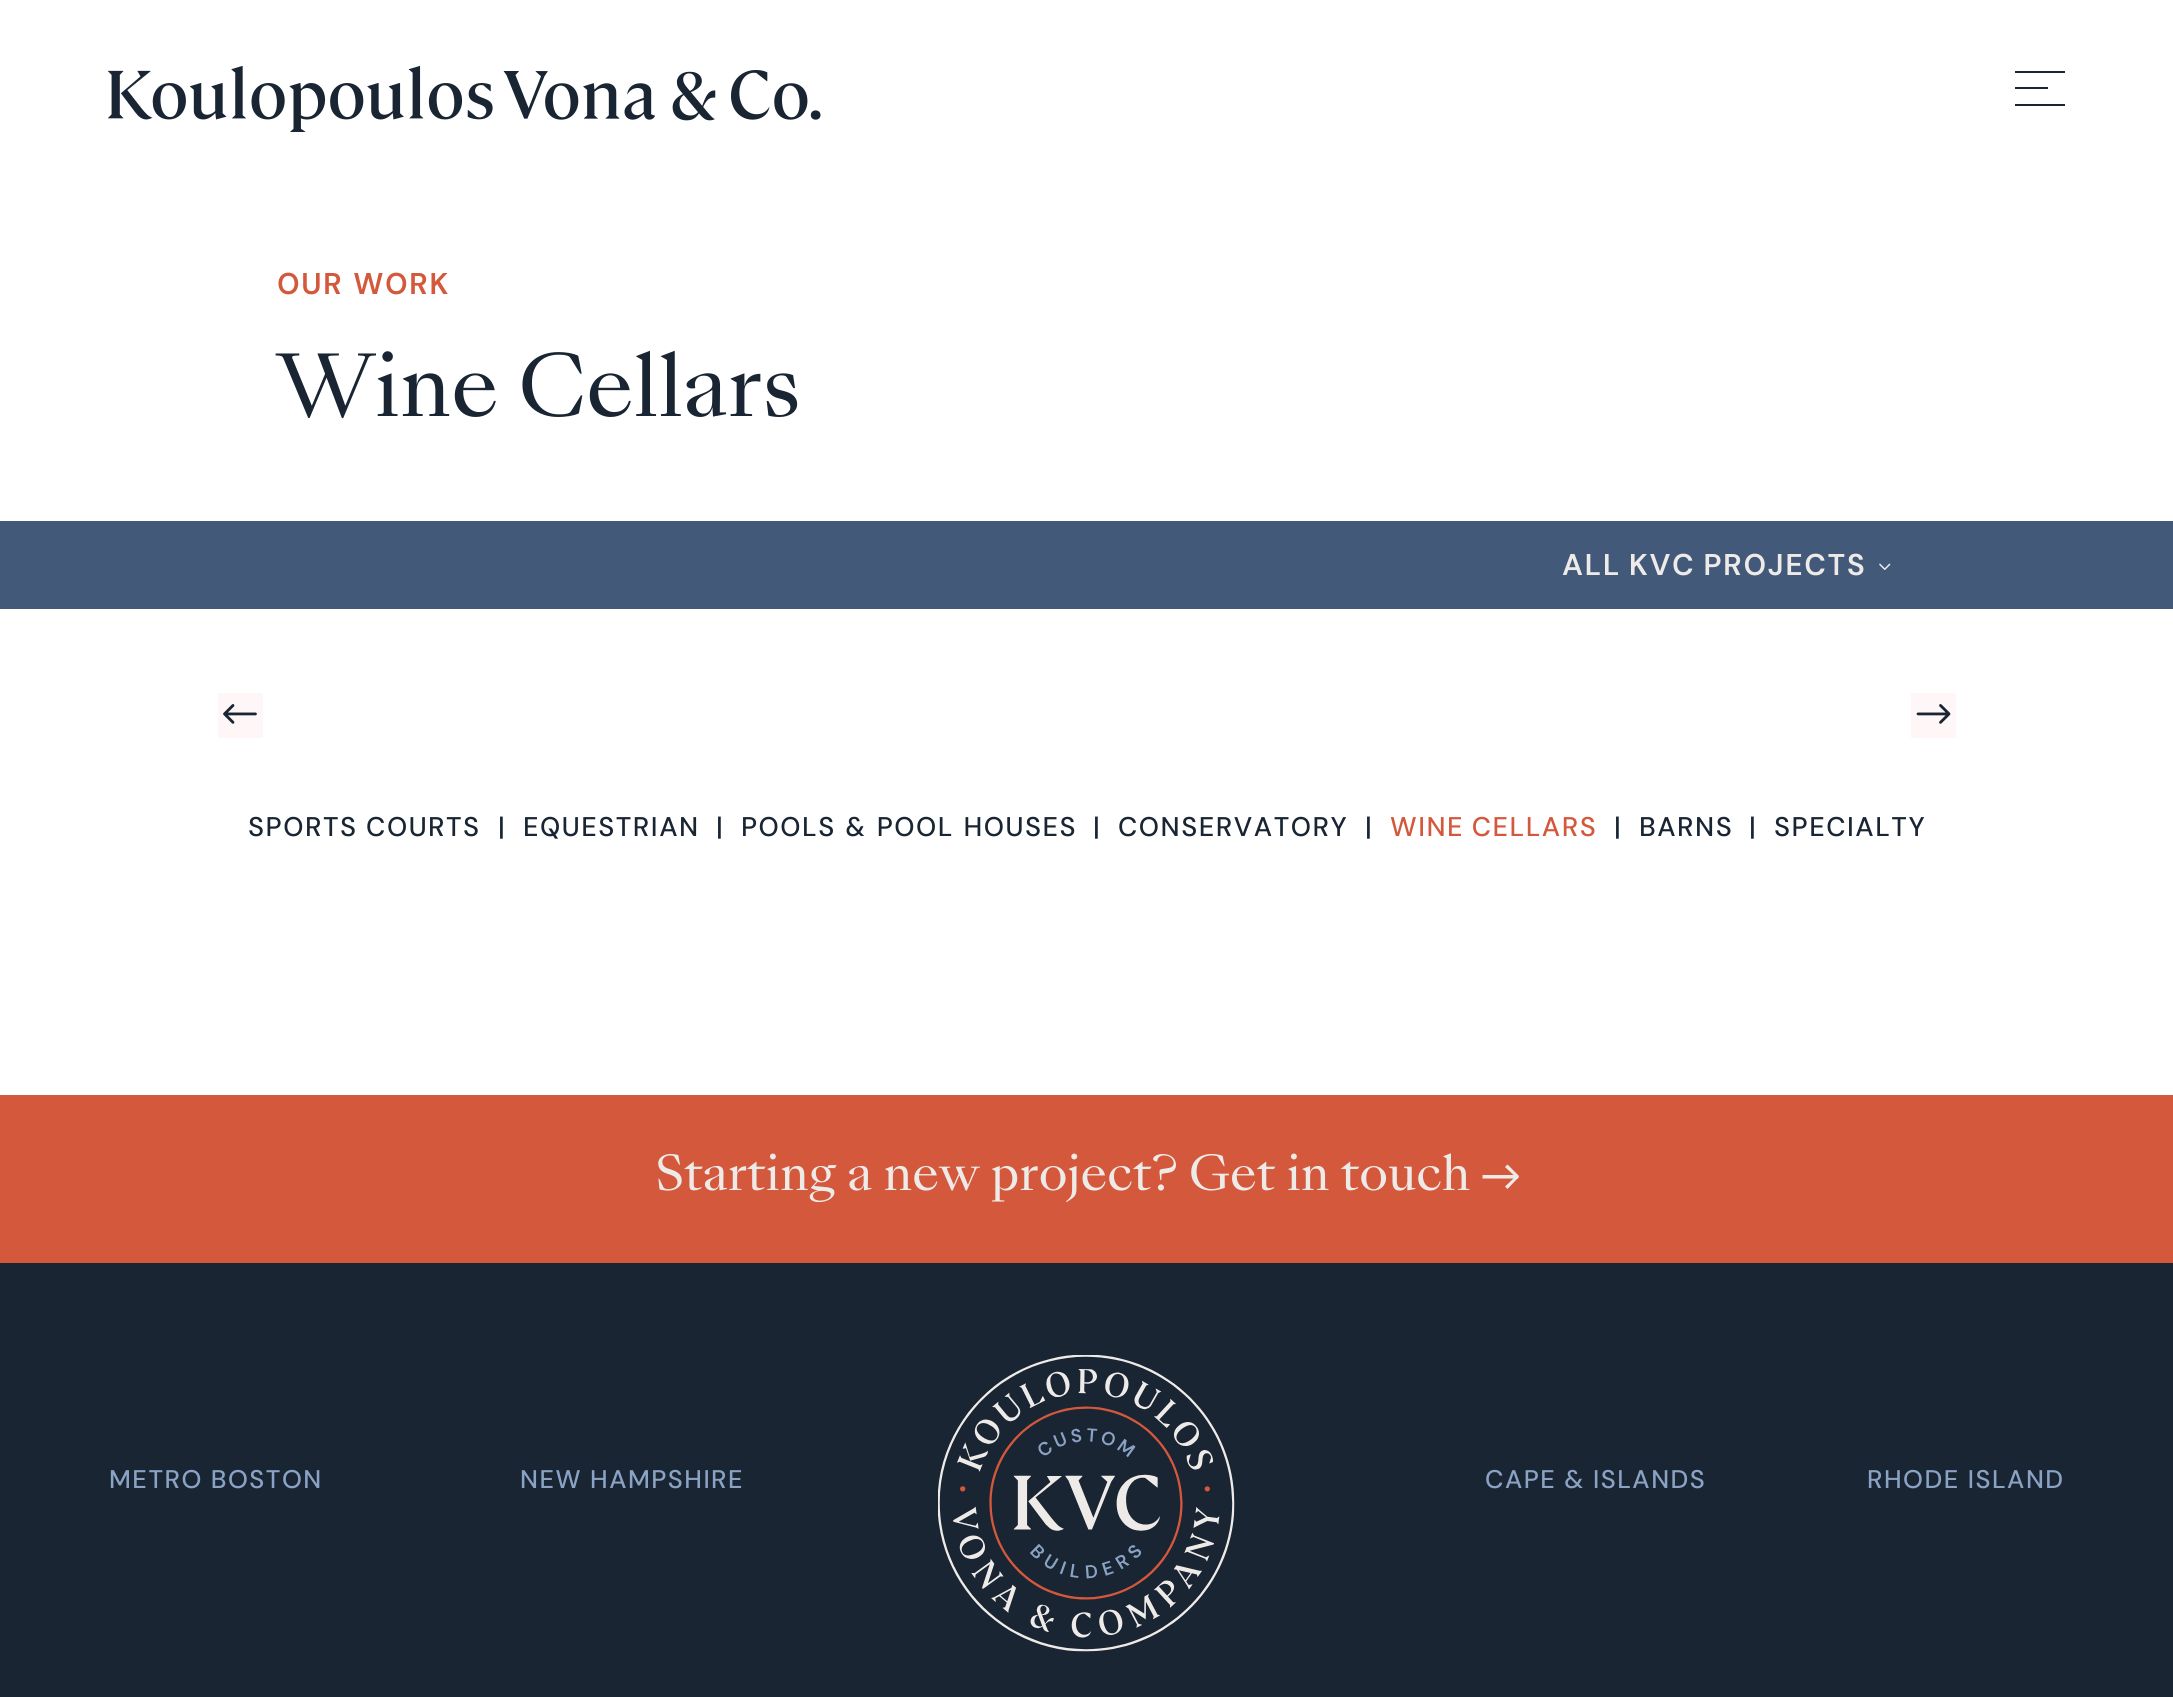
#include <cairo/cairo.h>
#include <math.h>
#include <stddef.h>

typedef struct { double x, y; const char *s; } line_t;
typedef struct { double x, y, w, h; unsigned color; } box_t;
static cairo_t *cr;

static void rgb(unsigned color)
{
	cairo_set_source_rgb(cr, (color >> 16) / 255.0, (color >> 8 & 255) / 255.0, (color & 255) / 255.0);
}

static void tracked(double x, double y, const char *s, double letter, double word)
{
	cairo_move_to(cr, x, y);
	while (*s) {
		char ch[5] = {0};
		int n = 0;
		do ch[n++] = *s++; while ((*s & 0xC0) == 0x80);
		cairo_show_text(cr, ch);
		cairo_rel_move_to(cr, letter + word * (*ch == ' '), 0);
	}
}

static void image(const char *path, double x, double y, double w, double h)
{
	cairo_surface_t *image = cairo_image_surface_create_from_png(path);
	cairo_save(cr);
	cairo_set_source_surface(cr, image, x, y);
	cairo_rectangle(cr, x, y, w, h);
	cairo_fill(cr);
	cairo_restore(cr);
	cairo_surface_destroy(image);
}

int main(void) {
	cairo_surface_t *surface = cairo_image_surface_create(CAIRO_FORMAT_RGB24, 2173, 1697);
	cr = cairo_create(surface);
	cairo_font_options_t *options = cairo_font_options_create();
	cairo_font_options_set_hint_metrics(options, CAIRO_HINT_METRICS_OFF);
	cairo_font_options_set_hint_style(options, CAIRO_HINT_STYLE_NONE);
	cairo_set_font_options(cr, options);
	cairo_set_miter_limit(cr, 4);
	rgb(0xffffff);
	cairo_paint(cr);
	image("img/1.png", 108, 66, 713, 66);
	{
		static const box_t items[] = {
			{2015, 71, 50, 2, 0x192533},
			{2015, 87, 33, 2, 0x192533},
			{2015, 104, 50, 2, 0x192533},
			{0, 521, 2173, 88, 0x42597a},
		};
		for (size_t i = 0; i < sizeof items / sizeof *items; i++) {
			rgb(items[i].color);
			cairo_rectangle(cr, items[i].x, items[i].y, items[i].w, items[i].h);
			cairo_fill(cr);
		}
	}
	image("img/2.png", 1879, 563, 12, 7);
	rgb(0xfff7f7);
	cairo_rectangle(cr, 218, 693, 45, 45);
	cairo_fill(cr);
	image("img/3.png", 223, 704, 34, 20);
	cairo_rectangle(cr, 1911, 693, 45, 45);
	cairo_fill(cr);
	image("img/4.png", 1916, 704, 35, 20);
	rgb(0xd3583c);
	cairo_rectangle(cr, 0, 1095, 2173, 168);
	cairo_fill(cr);
	rgb(0xeeeae7);
	cairo_new_path(cr);
	cairo_move_to(cr, 1518.5, 1175.5);
	cairo_line_to(cr, 1507.5, 1164.5);
	cairo_line_to(cr, 1505, 1167);
	cairo_line_to(cr, 1513.5, 1175);
	cairo_line_to(cr, 1482.5, 1175);
	cairo_line_to(cr, 1482.5, 1178.5);
	cairo_line_to(cr, 1513.5, 1178.5);
	cairo_line_to(cr, 1505, 1186.5);
	cairo_line_to(cr, 1507.5, 1189);
	cairo_line_to(cr, 1516.5, 1179.5);
	cairo_curve_to(cr, 1517.5, 1179, 1520, 1177, 1518.5, 1175.5);
	cairo_close_path(cr);
	cairo_fill(cr);
	rgb(0x192533);
	cairo_rectangle(cr, 0, 1263, 2173, 434);
	cairo_fill(cr);
	image("img/5.png", 938, 1355, 297, 297);
	cairo_select_font_face(cr, "DM Sans SemiBold", CAIRO_FONT_SLANT_NORMAL, CAIRO_FONT_WEIGHT_NORMAL);
	cairo_set_font_size(cr, 30);
	rgb(0xd3583c);
	tracked(277, 294, "OUR WORK", 1.5, 1);
	cairo_select_font_face(cr, "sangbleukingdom", CAIRO_FONT_SLANT_NORMAL, CAIRO_FONT_WEIGHT_NORMAL);
	cairo_set_font_size(cr, 82.5);
	rgb(0x192533);
	cairo_move_to(cr, 277, 416);
	cairo_show_text(cr, "Wine Cellars");
	cairo_select_font_face(cr, "DM Sans SemiBold", CAIRO_FONT_SLANT_NORMAL, CAIRO_FONT_WEIGHT_NORMAL);
	cairo_set_font_size(cr, 30);
	rgb(0xeeeae7);
	tracked(1562, 575, "ALL KVC PROJECTS", 1.5, -1);
	cairo_select_font_face(cr, "DM Sans Medium", CAIRO_FONT_SLANT_NORMAL, CAIRO_FONT_WEIGHT_NORMAL);
	cairo_set_font_size(cr, 27);
	rgb(0x192533);
	{
		static const line_t items[] = {
			{248, 836, "SPORTS COURTS"},
			{498, 836, "|"},
			{523, 836, "EQUESTRIAN"},
			{716, 836, "|"},
		};
		for (size_t i = 0; i < sizeof items / sizeof *items; i++) {
			tracked(items[i].x, items[i].y, items[i].s, 1.5, 0);
		}
	}
	tracked(741, 836, "POOLS & POOL HOUSES", 1.5, 1);
	{
		static const line_t items[] = {
			{1093, 836, "|"},
			{1118, 836, "CONSERVATORY"},
			{1365, 836, "|"},
		};
		for (size_t i = 0; i < sizeof items / sizeof *items; i++) {
			tracked(items[i].x, items[i].y, items[i].s, 1.5, 0);
		}
	}
	rgb(0xd3583c);
	tracked(1390, 836, "WINE CELLARS", 1.5, -1);
	rgb(0x192533);
	{
		static const line_t items[] = {
			{1614, 836, "|"},
			{1639, 836, "BARNS"},
			{1749, 836, "|"},
			{1774, 836, "SPECIALTY"},
		};
		for (size_t i = 0; i < sizeof items / sizeof *items; i++) {
			tracked(items[i].x, items[i].y, items[i].s, 1.5, 0);
		}
	}
	cairo_select_font_face(cr, "sangbleukingdom", CAIRO_FONT_SLANT_NORMAL, CAIRO_FONT_WEIGHT_NORMAL);
	cairo_set_font_size(cr, 46.5);
	rgb(0xeeeae7);
	cairo_move_to(cr, 655, 1190);
	cairo_show_text(cr, "Starting a new project? Get in touch");
	cairo_select_font_face(cr, "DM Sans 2 Medium", CAIRO_FONT_SLANT_NORMAL, CAIRO_FONT_WEIGHT_NORMAL);
	cairo_set_font_size(cr, 25.5);
	rgb(0x8aa2c3);
	{
		static const line_t items[] = {
			{109, 1488, "METRO BOSTON"},
			{520, 1488, "NEW HAMPSHIRE"},
			{1485, 1488, "CAPE & ISLANDS"},
			{1867, 1488, "RHODE ISLAND"},
		};
		for (size_t i = 0; i < sizeof items / sizeof *items; i++) {
			tracked(items[i].x, items[i].y, items[i].s, 1.5, 0);
		}
	}
	cairo_surface_write_to_png(surface, "page.png");
	cairo_font_options_destroy(options);
	cairo_destroy(cr);
	cairo_surface_destroy(surface);
	return 0;
}
